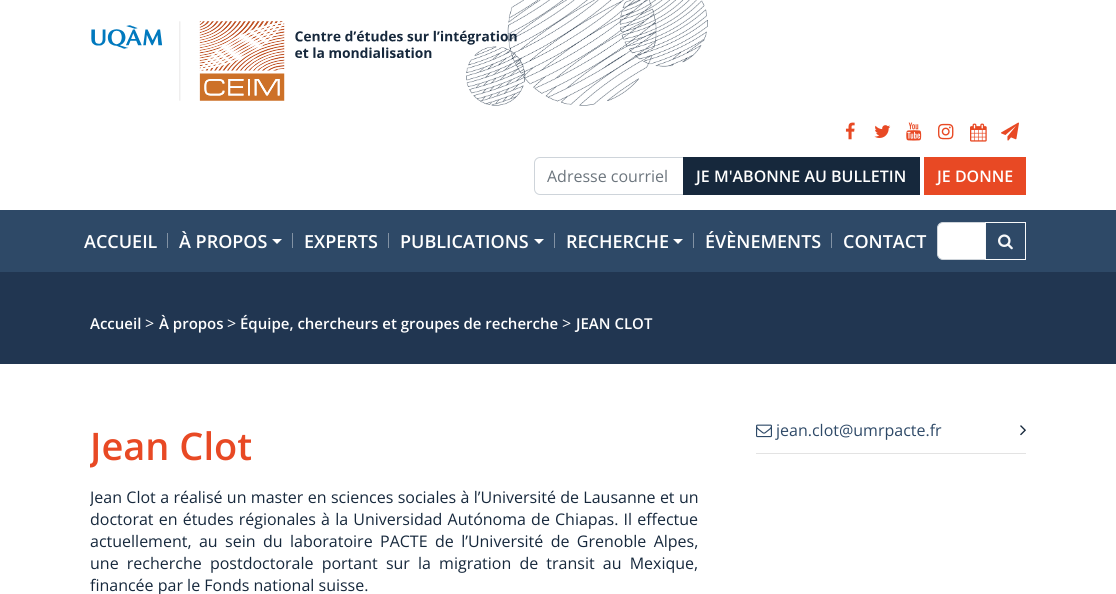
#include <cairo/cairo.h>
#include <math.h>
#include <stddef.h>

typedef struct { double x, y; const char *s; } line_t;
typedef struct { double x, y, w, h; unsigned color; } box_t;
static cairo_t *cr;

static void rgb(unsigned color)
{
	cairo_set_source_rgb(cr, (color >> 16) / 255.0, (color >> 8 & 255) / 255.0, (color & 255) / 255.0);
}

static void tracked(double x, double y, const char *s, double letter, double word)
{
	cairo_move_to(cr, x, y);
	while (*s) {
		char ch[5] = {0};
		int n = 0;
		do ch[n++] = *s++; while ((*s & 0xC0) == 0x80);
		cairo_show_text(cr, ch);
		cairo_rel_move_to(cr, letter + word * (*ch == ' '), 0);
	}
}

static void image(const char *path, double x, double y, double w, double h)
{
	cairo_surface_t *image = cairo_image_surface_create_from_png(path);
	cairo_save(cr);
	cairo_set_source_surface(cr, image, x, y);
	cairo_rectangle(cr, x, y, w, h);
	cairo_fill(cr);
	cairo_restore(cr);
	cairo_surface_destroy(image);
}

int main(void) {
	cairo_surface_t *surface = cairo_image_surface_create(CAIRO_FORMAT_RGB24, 1116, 594);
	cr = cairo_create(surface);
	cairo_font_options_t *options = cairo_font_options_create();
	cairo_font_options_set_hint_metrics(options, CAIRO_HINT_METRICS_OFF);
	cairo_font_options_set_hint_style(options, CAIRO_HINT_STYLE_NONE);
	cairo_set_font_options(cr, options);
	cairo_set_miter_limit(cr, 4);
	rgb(0xffffff);
	cairo_paint(cr);
	image("img/1.png", 466, 0, 242, 106);
	image("img/2.png", 91, 21, 426, 80);
	image("img/3.png", 845, 122, 10, 18);
	image("img/4.png", 874, 125, 17, 13);
	image("img/5.png", 906, 122, 16, 19);
	image("img/6.png", 938, 123, 16, 17);
	image("img/7.png", 970, 123, 17, 19);
	image("img/8.png", 1001, 122, 18, 19);
	cairo_new_path(cr);
	cairo_move_to(cr, 540, 157.5);
	cairo_line_to(cr, 683.5, 157.5);
	cairo_line_to(cr, 683.5, 194.5);
	cairo_line_to(cr, 540, 194.5);
	cairo_curve_to(cr, 537, 194.5, 534.5, 192, 534.5, 189);
	cairo_line_to(cr, 534.5, 163);
	cairo_curve_to(cr, 534.5, 160, 537, 157.5, 540, 157.5);
	cairo_close_path(cr);
	rgb(0xced4da);
	cairo_set_line_width(cr, 1);
	cairo_stroke(cr);
	{
		static const box_t items[] = {
			{683, 157, 237, 38, 0x16283c},
			{924, 157, 102, 38, 0xe84924},
			{0, 210, 1116, 62, 0x2e4967},
			{167, 233, 1, 15, 0x8292a4},
		};
		for (size_t i = 0; i < sizeof items / sizeof *items; i++) {
			rgb(items[i].color);
			cairo_rectangle(cr, items[i].x, items[i].y, items[i].w, items[i].h);
			cairo_fill(cr);
		}
	}
	rgb(0xffffff);
	cairo_new_path(cr);
	cairo_move_to(cr, 272, 239);
	cairo_line_to(cr, 282, 239);
	cairo_line_to(cr, 277, 244);
	cairo_close_path(cr);
	cairo_fill(cr);
	rgb(0x8292a4);
	cairo_rectangle(cr, 292, 233, 1, 15);
	cairo_fill(cr);
	cairo_rectangle(cr, 388, 233, 1, 15);
	cairo_fill(cr);
	rgb(0xffffff);
	cairo_new_path(cr);
	cairo_move_to(cr, 534, 239);
	cairo_line_to(cr, 544, 239);
	cairo_line_to(cr, 539, 244);
	cairo_close_path(cr);
	cairo_fill(cr);
	rgb(0x8292a4);
	cairo_rectangle(cr, 554, 233, 1, 15);
	cairo_fill(cr);
	rgb(0xffffff);
	cairo_new_path(cr);
	cairo_move_to(cr, 673, 239);
	cairo_line_to(cr, 683, 239);
	cairo_line_to(cr, 678, 244);
	cairo_close_path(cr);
	cairo_fill(cr);
	rgb(0x8292a4);
	cairo_rectangle(cr, 693, 233, 1, 15);
	cairo_fill(cr);
	cairo_rectangle(cr, 831, 233, 1, 15);
	cairo_fill(cr);
	rgb(0xffffff);
	cairo_new_path(cr);
	cairo_move_to(cr, 943, 222.5);
	cairo_line_to(cr, 985.5, 222.5);
	cairo_line_to(cr, 985.5, 259.5);
	cairo_line_to(cr, 943, 259.5);
	cairo_curve_to(cr, 940, 259.5, 937.5, 257, 937.5, 254);
	cairo_line_to(cr, 937.5, 228);
	cairo_curve_to(cr, 937.5, 225, 940, 222.5, 943, 222.5);
	cairo_close_path(cr);
	cairo_fill_preserve(cr);
	rgb(0xced4da);
	cairo_stroke(cr);
	cairo_rectangle(cr, 985.5, 222.5, 40, 37);
	rgb(0xf8f9fa);
	cairo_stroke(cr);
	image("img/9.png", 998, 234, 15, 16);
	rgb(0x213651);
	cairo_rectangle(cr, 0, 272, 1116, 92);
	cairo_fill(cr);
	rgb(0xe3e3e3);
	cairo_rectangle(cr, 756, 453, 270, 1);
	cairo_fill(cr);
	image("img/10.png", 756, 424, 16, 14);
	image("img/11.png", 1020, 425, 6, 11);
	cairo_select_font_face(cr, "Open Sans", CAIRO_FONT_SLANT_NORMAL, CAIRO_FONT_WEIGHT_NORMAL);
	cairo_set_font_size(cr, 16);
	rgb(0x6c757d);
	cairo_move_to(cr, 547, 182);
	cairo_show_text(cr, "Adresse courriel");
	cairo_select_font_face(cr, "Open Sans SemiBold", CAIRO_FONT_SLANT_NORMAL, CAIRO_FONT_WEIGHT_NORMAL);
	rgb(0xffffff);
	cairo_move_to(cr, 696, 182);
	cairo_show_text(cr, "JE M'ABONNE AU BULLETIN");
	cairo_move_to(cr, 937, 182);
	cairo_show_text(cr, "JE DONNE");
	cairo_set_font_size(cr, 18);
	{
		static const line_t items[] = {
			{84, 248, "ACCUEIL"},
			{179, 248, "À PROPOS"},
			{304, 248, "EXPERTS"},
			{400, 248, "PUBLICATIONS"},
			{566, 248, "RECHERCHE"},
			{705, 248, "ÉVÈNEMENTS"},
			{843, 248, "CONTACT"},
		};
		for (size_t i = 0; i < sizeof items / sizeof *items; i++) {
			cairo_move_to(cr, items[i].x, items[i].y);
			cairo_show_text(cr, items[i].s);
		}
	}
	cairo_set_font_size(cr, 15);
	cairo_move_to(cr, 90, 329);
	cairo_show_text(cr, "Accueil");
	cairo_select_font_face(cr, "Open Sans", CAIRO_FONT_SLANT_NORMAL, CAIRO_FONT_WEIGHT_NORMAL);
	cairo_set_font_size(cr, 16);
	cairo_move_to(cr, 145, 329);
	cairo_show_text(cr, ">");
	cairo_select_font_face(cr, "Open Sans SemiBold", CAIRO_FONT_SLANT_NORMAL, CAIRO_FONT_WEIGHT_NORMAL);
	cairo_set_font_size(cr, 15);
	cairo_move_to(cr, 159, 329);
	cairo_show_text(cr, "À propos");
	cairo_select_font_face(cr, "Open Sans", CAIRO_FONT_SLANT_NORMAL, CAIRO_FONT_WEIGHT_NORMAL);
	cairo_set_font_size(cr, 16);
	cairo_move_to(cr, 227, 329);
	cairo_show_text(cr, ">");
	cairo_select_font_face(cr, "Open Sans SemiBold", CAIRO_FONT_SLANT_NORMAL, CAIRO_FONT_WEIGHT_NORMAL);
	cairo_set_font_size(cr, 15);
	cairo_move_to(cr, 240, 329);
	cairo_show_text(cr, "Équipe, chercheurs et groupes de recherche");
	cairo_select_font_face(cr, "Open Sans", CAIRO_FONT_SLANT_NORMAL, CAIRO_FONT_WEIGHT_NORMAL);
	cairo_set_font_size(cr, 16);
	cairo_move_to(cr, 562, 329);
	cairo_show_text(cr, ">");
	cairo_select_font_face(cr, "Open Sans SemiBold", CAIRO_FONT_SLANT_NORMAL, CAIRO_FONT_WEIGHT_NORMAL);
	cairo_set_font_size(cr, 15);
	cairo_move_to(cr, 576, 329);
	cairo_show_text(cr, "JEAN CLOT");
	cairo_save(cr);
	cairo_rectangle(cr, 90, 419, 608, 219);
	cairo_clip(cr);
	cairo_set_font_size(cr, 38);
	rgb(0xe84924);
	cairo_move_to(cr, 90, 460);
	cairo_show_text(cr, "Jean Clot");
	cairo_select_font_face(cr, "Open Sans", CAIRO_FONT_SLANT_NORMAL, CAIRO_FONT_WEIGHT_NORMAL);
	cairo_set_font_size(cr, 16);
	rgb(0x16283c);
	tracked(90, 503, "Jean Clot a réalisé un master en sciences sociales à l’Université de Lausanne et un", 0, 0.2);
	cairo_restore(cr);
	cairo_select_font_face(cr, "Open Sans", CAIRO_FONT_SLANT_NORMAL, CAIRO_FONT_WEIGHT_NORMAL);
	cairo_set_font_size(cr, 16);
	rgb(0x16283c);
	tracked(90, 525, "doctorat en études régionales à la Universidad Autónoma de Chiapas. Il effectue", 0, 1);
	tracked(90, 547, "actuellement, au sein du laboratoire PACTE de l’Université de Grenoble Alpes,", 0, 3.25);
	tracked(90, 569, "une recherche postdoctorale portant sur la migration de transit au Mexique,", 0, 4);
	cairo_move_to(cr, 90, 591);
	cairo_show_text(cr, "financée par le Fonds national suisse.");
	rgb(0x2e4967);
	cairo_move_to(cr, 776, 436);
	cairo_show_text(cr, "jean.clot@umrpacte.fr");
	cairo_surface_write_to_png(surface, "page.png");
	cairo_font_options_destroy(options);
	cairo_destroy(cr);
	cairo_surface_destroy(surface);
	return 0;
}
